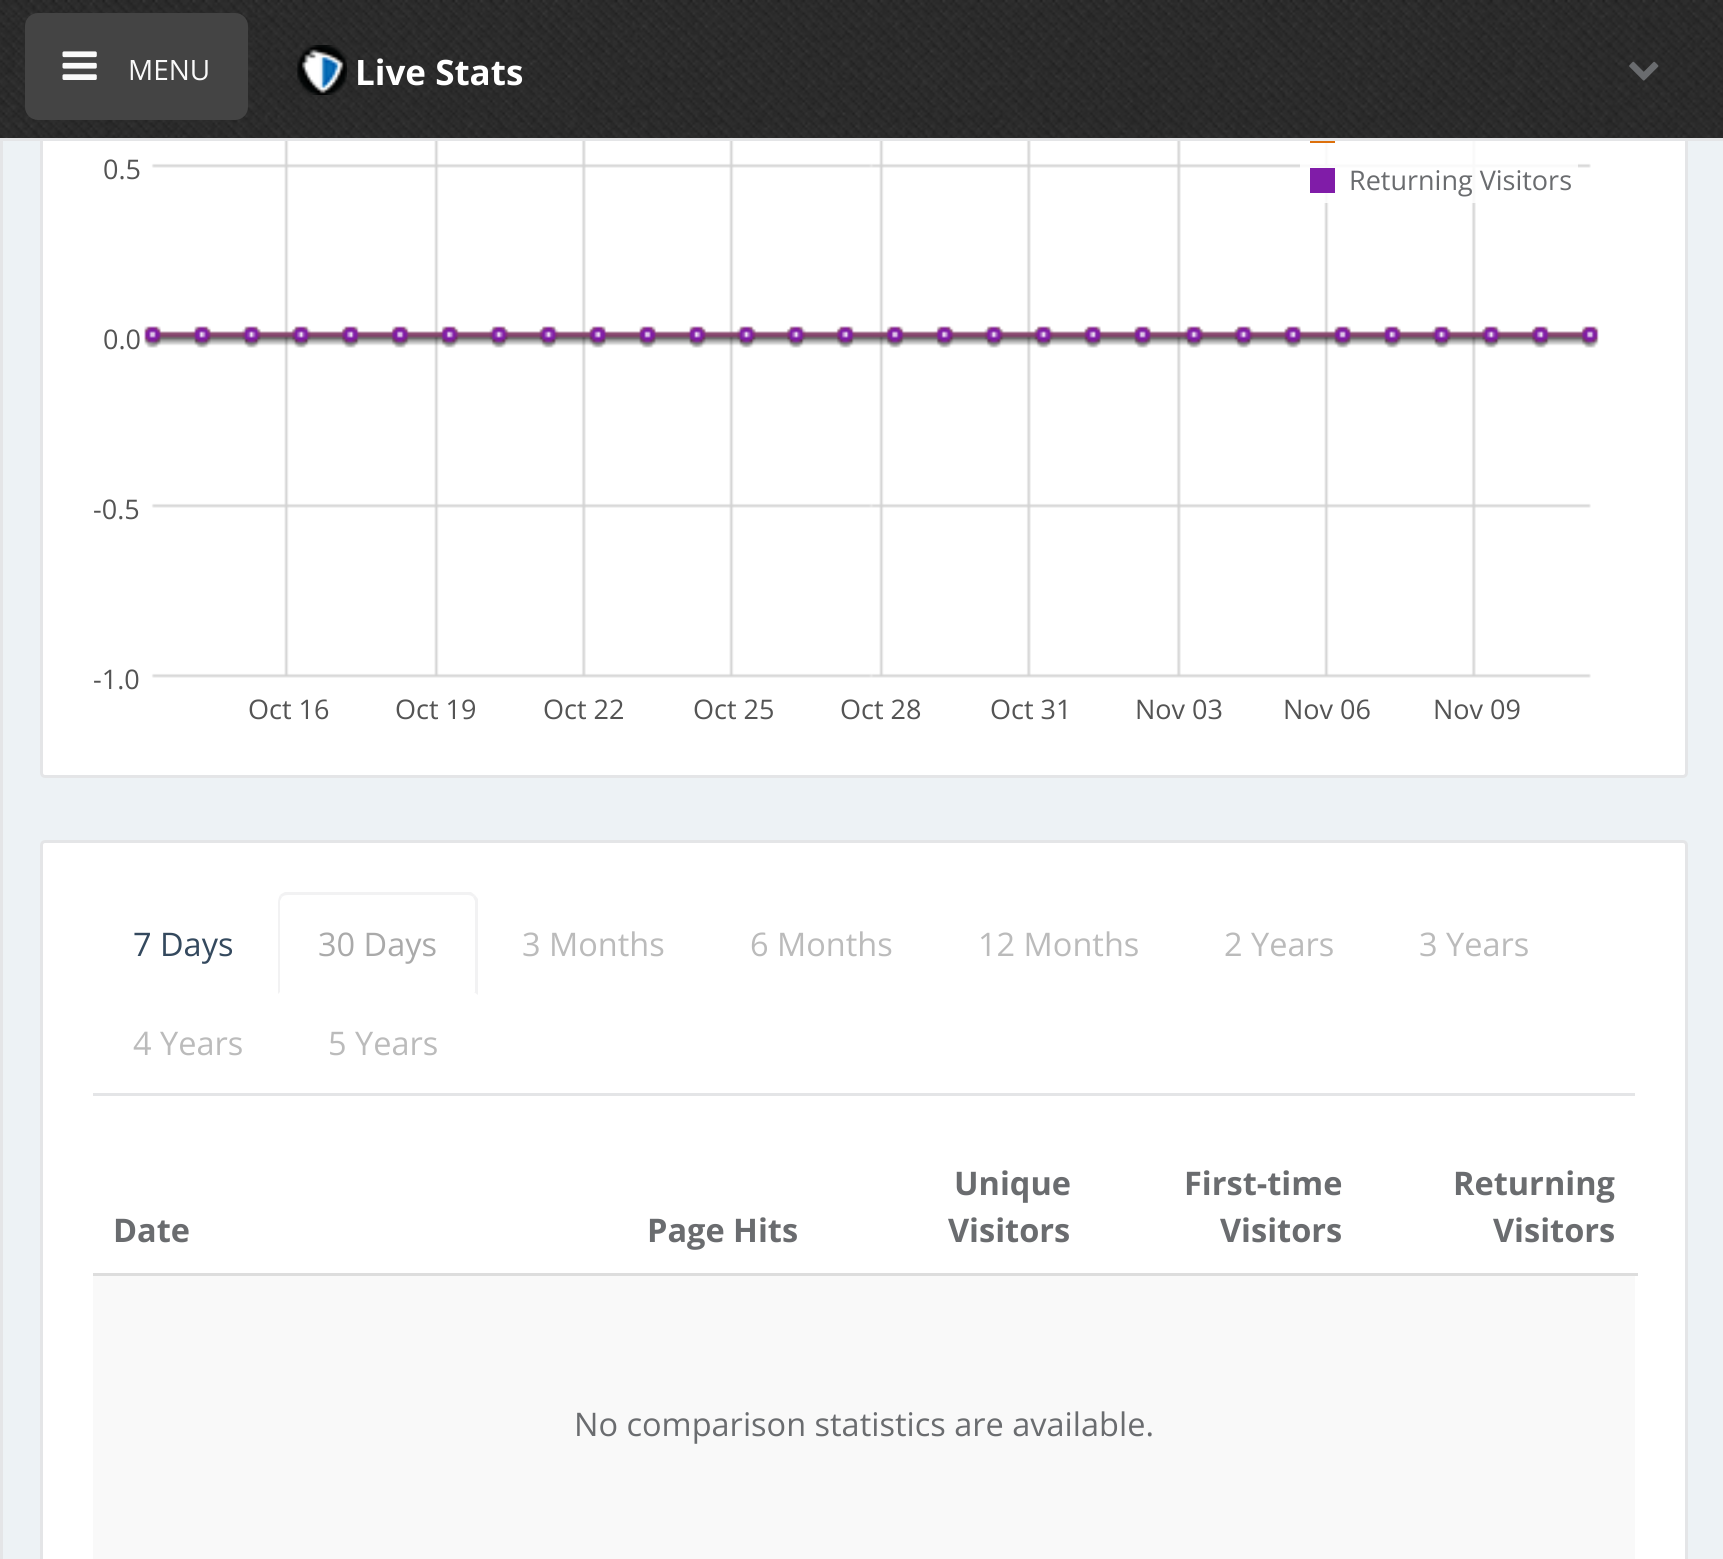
#include <cairo/cairo.h>
#include <math.h>
#include <stddef.h>

typedef struct { double x, y; const char *s; } line_t;
static cairo_t *cr;

static void rgb(unsigned color)
{
	cairo_set_source_rgb(cr, (color >> 16) / 255.0, (color >> 8 & 255) / 255.0, (color & 255) / 255.0);
}

static void rrect(double x, double y, double w, double h, double r)
{
	cairo_new_sub_path(cr);
	cairo_arc(cr, x + w - r, y + h - r, r, 0, M_PI / 2);
	cairo_arc(cr, x + r, y + h - r, r, M_PI / 2, M_PI);
	cairo_arc(cr, x + r, y + r, r, M_PI, 1.5 * M_PI);
	cairo_arc(cr, x + w - r, y + r, r, 1.5 * M_PI, 2 * M_PI);
	cairo_close_path(cr);
}

static void image(const char *path, double x, double y, double w, double h)
{
	cairo_surface_t *image = cairo_image_surface_create_from_png(path);
	cairo_save(cr);
	cairo_set_source_surface(cr, image, x, y);
	cairo_rectangle(cr, x, y, w, h);
	cairo_fill(cr);
	cairo_restore(cr);
	cairo_surface_destroy(image);
}

int main(void) {
	cairo_surface_t *surface = cairo_image_surface_create(CAIRO_FORMAT_RGB24, 1723, 1559);
	cr = cairo_create(surface);
	cairo_font_options_t *options = cairo_font_options_create();
	cairo_font_options_set_hint_metrics(options, CAIRO_HINT_METRICS_OFF);
	cairo_font_options_set_hint_style(options, CAIRO_HINT_STYLE_NONE);
	cairo_set_font_options(cr, options);
	cairo_set_miter_limit(cr, 4);
	rgb(0xedf2f5);
	cairo_paint(cr);
	rgb(0xffffff);
	rrect(41.5, -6.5, 1645, 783, 3.5);
	cairo_fill_preserve(cr);
	rgb(0xe4e5e7);
	cairo_set_line_width(cr, 3);
	cairo_stroke(cr);
	image("img/1.png", 0, 0, 1723, 138);
	cairo_rectangle(cr, 0, 138, 1723, 3);
	cairo_fill(cr);
	rgb(0x444444);
	rrect(25, 13, 223, 107, 13);
	cairo_fill(cr);
	image("img/2.png", 62, 51, 35, 29);
	image("img/3.png", 297, 45, 50, 50);
	image("img/4.png", 1629, 61, 30, 20);
	rgb(0xe4e5e7);
	cairo_rectangle(cr, 0, 141, 3, 1418);
	cairo_fill(cr);
	image("img/5.png", 144, 141, 1455, 537);
	cairo_set_source_rgba(cr, 1, 1, 1, 0.85);
	cairo_rectangle(cr, 1300, 141, 278, 62);
	cairo_fill(cr);
	rgb(0xdd700b);
	cairo_rectangle(cr, 1310, 141, 25, 2);
	cairo_fill(cr);
	rgb(0x801ca8);
	cairo_rectangle(cr, 1310, 168, 25, 25);
	cairo_fill(cr);
	rgb(0xffffff);
	rrect(41.5, 841.5, 1645, 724, 3.5);
	cairo_fill_preserve(cr);
	rgb(0xe4e5e7);
	cairo_stroke(cr);
	cairo_rectangle(cr, 93, 1093, 1542, 3);
	cairo_fill(cr);
	rgb(0xf2f2f3);
	cairo_new_path(cr);
	cairo_move_to(cr, 288, 895);
	cairo_curve_to(cr, 285, 895, 283, 896, 282, 897);
	cairo_line_to(cr, 280, 895);
	cairo_curve_to(cr, 281, 894, 283, 893, 285, 892);
	cairo_line_to(cr, 471, 892);
	cairo_line_to(cr, 475, 895);
	cairo_line_to(cr, 473, 897);
	cairo_curve_to(cr, 472, 896, 470, 895, 468, 895);
	cairo_close_path(cr);
	cairo_fill(cr);
	cairo_new_path(cr);
	cairo_move_to(cr, 478, 899);
	cairo_line_to(cr, 478, 995);
	cairo_line_to(cr, 474, 992);
	cairo_line_to(cr, 475, 992);
	cairo_line_to(cr, 475, 901);
	cairo_line_to(cr, 473, 897);
	cairo_line_to(cr, 475, 895);
	cairo_close_path(cr);
	cairo_fill(cr);
	cairo_new_path(cr);
	cairo_move_to(cr, 278, 994);
	cairo_line_to(cr, 278, 902);
	cairo_curve_to(cr, 278, 900, 279, 897, 280, 895);
	cairo_line_to(cr, 282, 897);
	cairo_line_to(cr, 280, 901);
	cairo_line_to(cr, 280, 992);
	cairo_close_path(cr);
	cairo_fill(cr);
	rgb(0xf9f9f9);
	cairo_rectangle(cr, 93, 1276, 1542, 283);
	cairo_fill(cr);
	rgb(0xdddddd);
	cairo_rectangle(cr, 93, 1273, 1545, 3);
	cairo_fill(cr);
	cairo_select_font_face(cr, "Open Sans", CAIRO_FONT_SLANT_NORMAL, CAIRO_FONT_WEIGHT_NORMAL);
	cairo_set_font_size(cr, 28);
	rgb(0xf9f9f9);
	cairo_move_to(cr, 128, 80);
	cairo_show_text(cr, "MENU");
	cairo_select_font_face(cr, "Open Sans", CAIRO_FONT_SLANT_NORMAL, CAIRO_FONT_WEIGHT_BOLD);
	cairo_set_font_size(cr, 35);
	rgb(0xffffff);
	cairo_move_to(cr, 355, 85);
	cairo_show_text(cr, "Live Stats");
	cairo_select_font_face(cr, "Open Sans", CAIRO_FONT_SLANT_NORMAL, CAIRO_FONT_WEIGHT_NORMAL);
	cairo_set_font_size(cr, 27);
	rgb(0x545454);
	{
		static const line_t items[] = {
			{103, 179, "0.5"},
			{103, 349, "0.0"},
			{93, 519, "-0.5"},
			{93, 689, "-1.0"},
			{248, 719, "Oct 16"},
			{395, 719, "Oct 19"},
			{543, 719, "Oct 22"},
			{693, 719, "Oct 25"},
			{840, 719, "Oct 28"},
			{990, 719, "Oct 31"},
			{1135, 719, "Nov 03"},
			{1283, 719, "Nov 06"},
			{1433, 719, "Nov 09"},
		};
		for (size_t i = 0; i < sizeof items / sizeof *items; i++) {
			cairo_move_to(cr, items[i].x, items[i].y);
			cairo_show_text(cr, items[i].s);
		}
	}
	rgb(0x6a6c6f);
	cairo_move_to(cr, 1349, 190);
	cairo_show_text(cr, "Returning Visitors");
	cairo_set_font_size(cr, 32.5);
	rgb(0x34495e);
	cairo_move_to(cr, 133, 956);
	cairo_show_text(cr, "7 Days");
	rgb(0xaaaaaa);
	cairo_move_to(cr, 318, 956);
	cairo_show_text(cr, "30 Days");
	rgb(0xbbbbbb);
	{
		static const line_t items[] = {
			{522, 956, "3 Months"},
			{750, 956, "6 Months"},
			{978, 956, "12 Months"},
			{1224, 956, "2 Years"},
			{1419, 956, "3 Years"},
			{133, 1055, "4 Years"},
			{328, 1055, "5 Years"},
		};
		for (size_t i = 0; i < sizeof items / sizeof *items; i++) {
			cairo_move_to(cr, items[i].x, items[i].y);
			cairo_show_text(cr, items[i].s);
		}
	}
	cairo_select_font_face(cr, "Open Sans", CAIRO_FONT_SLANT_NORMAL, CAIRO_FONT_WEIGHT_BOLD);
	rgb(0x6a6c6f);
	{
		static const line_t items[] = {
			{113, 1242, "Date"},
			{647, 1242, "Page Hits"},
			{954, 1195, "Unique"},
			{948, 1242, "Visitors"},
			{1184, 1195, "First-time"},
			{1220, 1242, "Visitors"},
			{1453, 1195, "Returning"},
			{1493, 1242, "Visitors"},
		};
		for (size_t i = 0; i < sizeof items / sizeof *items; i++) {
			cairo_move_to(cr, items[i].x, items[i].y);
			cairo_show_text(cr, items[i].s);
		}
	}
	cairo_select_font_face(cr, "Open Sans", CAIRO_FONT_SLANT_NORMAL, CAIRO_FONT_WEIGHT_NORMAL);
	cairo_move_to(cr, 574, 1436);
	cairo_show_text(cr, "No comparison statistics are available.");
	cairo_surface_write_to_png(surface, "page.png");
	cairo_font_options_destroy(options);
	cairo_destroy(cr);
	cairo_surface_destroy(surface);
	return 0;
}
